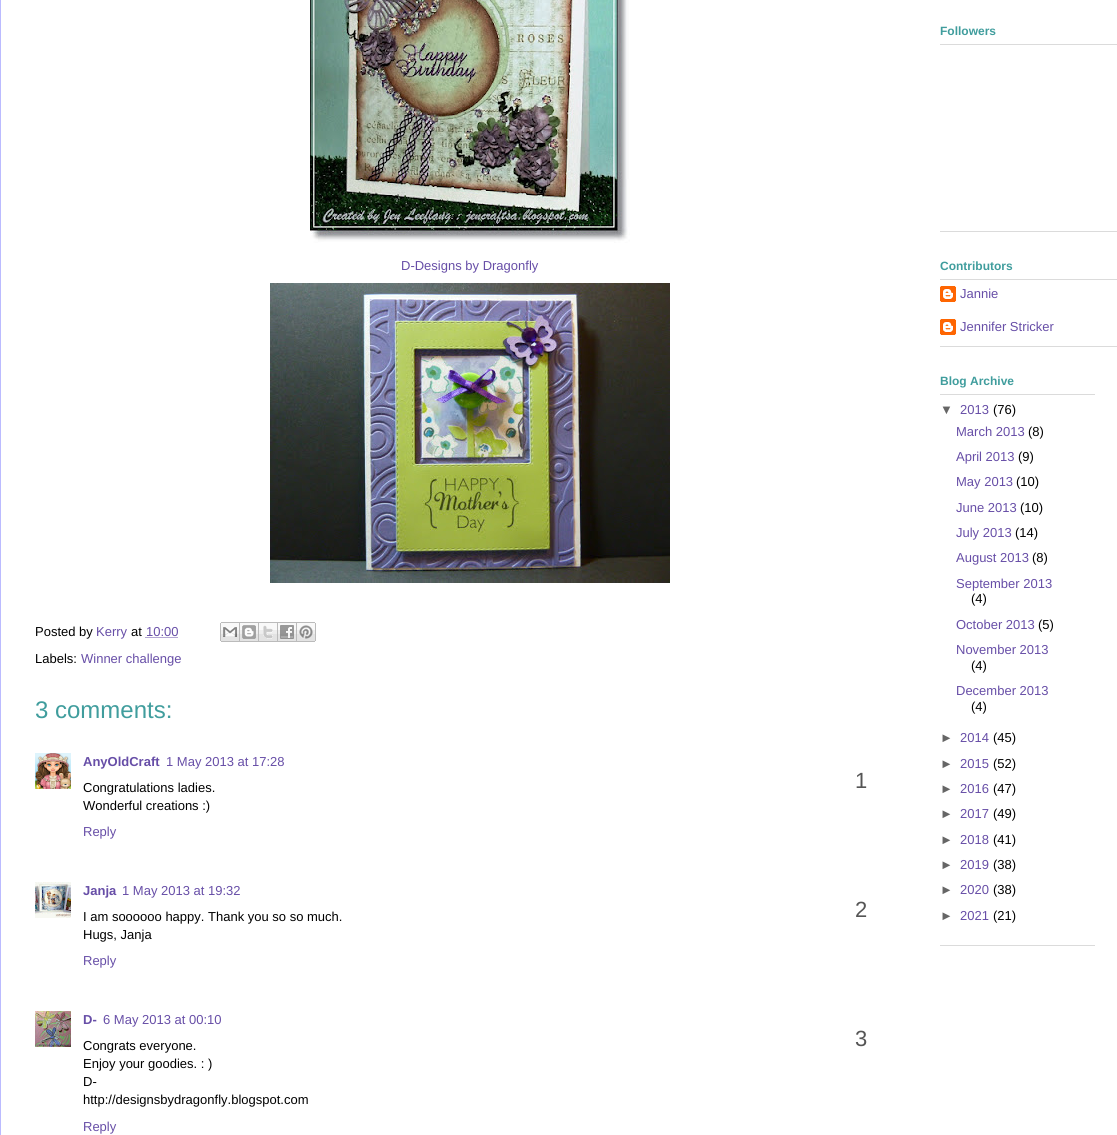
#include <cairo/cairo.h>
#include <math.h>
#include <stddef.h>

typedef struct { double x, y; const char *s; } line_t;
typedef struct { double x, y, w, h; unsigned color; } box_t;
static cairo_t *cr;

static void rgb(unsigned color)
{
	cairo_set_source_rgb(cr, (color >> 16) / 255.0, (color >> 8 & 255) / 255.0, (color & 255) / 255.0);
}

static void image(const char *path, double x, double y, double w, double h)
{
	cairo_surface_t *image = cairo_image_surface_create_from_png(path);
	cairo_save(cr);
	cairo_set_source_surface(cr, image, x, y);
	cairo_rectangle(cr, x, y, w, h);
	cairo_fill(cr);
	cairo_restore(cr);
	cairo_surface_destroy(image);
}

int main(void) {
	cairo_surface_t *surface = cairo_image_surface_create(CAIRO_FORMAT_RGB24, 1117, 1135);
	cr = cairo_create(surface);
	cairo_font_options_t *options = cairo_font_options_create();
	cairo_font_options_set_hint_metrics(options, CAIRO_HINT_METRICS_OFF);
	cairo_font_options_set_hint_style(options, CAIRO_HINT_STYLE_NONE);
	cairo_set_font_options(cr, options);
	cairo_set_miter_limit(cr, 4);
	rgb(0xffffff);
	cairo_paint(cr);
	rgb(0xbbbbff);
	cairo_rectangle(cr, 0, 0, 1, 1135);
	cairo_fill(cr);
	image("img/1.png", 310, 0, 320, 243);
	image("img/2.png", 270, 283, 400, 300);
	cairo_new_path(cr);
	cairo_move_to(cr, 145.5, 637.5);
	cairo_line_to(cr, 178, 637.5);
	rgb(0x674ea7);
	cairo_set_line_width(cr, 1);
	cairo_set_dash(cr, (double[]){1, 1}, 2, 0);
	cairo_stroke(cr);
	image("img/3.png", 220, 622, 20, 20);
	image("img/4.png", 240, 622, 19, 20);
	image("img/5.png", 259, 622, 19, 20);
	image("img/6.png", 278, 622, 19, 20);
	image("img/7.png", 297, 622, 19, 20);
	image("img/8.png", 35, 753, 36, 36);
	image("img/9.png", 35, 882, 36, 36);
	image("img/10.png", 35, 1011, 36, 36);
	{
		static const box_t items[] = {
			{940, 231, 177, 1, 0xdbdbdb},
			{940, 44, 177, 1, 0xdbdbdb},
			{940, 346, 177, 1, 0xdbdbdb},
			{940, 279, 177, 1, 0xdbdbdb},
		};
		for (size_t i = 0; i < sizeof items / sizeof *items; i++) {
			rgb(items[i].color);
			cairo_rectangle(cr, items[i].x, items[i].y, items[i].w, items[i].h);
			cairo_fill(cr);
		}
	}
	image("img/11.png", 940, 286, 16, 16);
	image("img/11.png", 940, 319, 16, 16);
	cairo_rectangle(cr, 940, 945, 155, 1);
	cairo_fill(cr);
	cairo_rectangle(cr, 940, 394, 155, 1);
	cairo_fill(cr);
	cairo_select_font_face(cr, "Liberation Sans", CAIRO_FONT_SLANT_NORMAL, CAIRO_FONT_WEIGHT_NORMAL);
	cairo_set_font_size(cr, 13);
	rgb(0x674ea7);
	cairo_move_to(cr, 401, 270);
	cairo_show_text(cr, "D-Designs by Dragonfly");
	rgb(0x000000);
	cairo_move_to(cr, 35, 636);
	cairo_show_text(cr, "Posted by");
	rgb(0x674ea7);
	cairo_move_to(cr, 96, 636);
	cairo_show_text(cr, "Kerry");
	rgb(0x000000);
	cairo_move_to(cr, 131, 636);
	cairo_show_text(cr, "at");
	rgb(0x674ea7);
	cairo_move_to(cr, 146, 636);
	cairo_show_text(cr, "10:00");
	rgb(0x000000);
	cairo_move_to(cr, 35, 663);
	cairo_show_text(cr, "Labels:");
	rgb(0x674ea7);
	cairo_move_to(cr, 81, 663);
	cairo_show_text(cr, "Winner challenge");
	cairo_set_font_size(cr, 24);
	rgb(0x409d9d);
	cairo_move_to(cr, 35, 718);
	cairo_show_text(cr, "3 comments:");
	cairo_select_font_face(cr, "Liberation Sans", CAIRO_FONT_SLANT_NORMAL, CAIRO_FONT_WEIGHT_BOLD);
	cairo_set_font_size(cr, 13);
	rgb(0x674ea7);
	cairo_move_to(cr, 83, 766);
	cairo_show_text(cr, "AnyOldCraft");
	cairo_select_font_face(cr, "Liberation Sans", CAIRO_FONT_SLANT_NORMAL, CAIRO_FONT_WEIGHT_NORMAL);
	cairo_move_to(cr, 166, 766);
	cairo_show_text(cr, "1 May 2013 at 17:28");
	rgb(0x000000);
	cairo_move_to(cr, 83, 792);
	cairo_show_text(cr, "Congratulations ladies.");
	cairo_move_to(cr, 83, 810);
	cairo_show_text(cr, "Wonderful creations :)");
	rgb(0x674ea7);
	cairo_move_to(cr, 83, 836);
	cairo_show_text(cr, "Reply");
	cairo_set_font_size(cr, 22);
	rgb(0x555555);
	cairo_move_to(cr, 855, 788);
	cairo_show_text(cr, "1");
	cairo_select_font_face(cr, "Liberation Sans", CAIRO_FONT_SLANT_NORMAL, CAIRO_FONT_WEIGHT_BOLD);
	cairo_set_font_size(cr, 13);
	rgb(0x674ea7);
	cairo_move_to(cr, 83, 895);
	cairo_show_text(cr, "Janja");
	cairo_select_font_face(cr, "Liberation Sans", CAIRO_FONT_SLANT_NORMAL, CAIRO_FONT_WEIGHT_NORMAL);
	cairo_move_to(cr, 122, 895);
	cairo_show_text(cr, "1 May 2013 at 19:32");
	rgb(0x000000);
	cairo_move_to(cr, 83, 921);
	cairo_show_text(cr, "I am soooooo happy. Thank you so so much.");
	cairo_move_to(cr, 83, 939);
	cairo_show_text(cr, "Hugs, Janja");
	rgb(0x674ea7);
	cairo_move_to(cr, 83, 965);
	cairo_show_text(cr, "Reply");
	cairo_set_font_size(cr, 22);
	rgb(0x555555);
	cairo_move_to(cr, 855, 917);
	cairo_show_text(cr, "2");
	cairo_select_font_face(cr, "Liberation Sans", CAIRO_FONT_SLANT_NORMAL, CAIRO_FONT_WEIGHT_BOLD);
	cairo_set_font_size(cr, 13);
	rgb(0x674ea7);
	cairo_move_to(cr, 83, 1024);
	cairo_show_text(cr, "D-");
	cairo_select_font_face(cr, "Liberation Sans", CAIRO_FONT_SLANT_NORMAL, CAIRO_FONT_WEIGHT_NORMAL);
	cairo_move_to(cr, 103, 1024);
	cairo_show_text(cr, "6 May 2013 at 00:10");
	rgb(0x000000);
	{
		static const line_t items[] = {
			{83, 1050, "Congrats everyone."},
			{83, 1068, "Enjoy your goodies. : )"},
			{83, 1086, "D-"},
			{83, 1104, "http://designsbydragonfly.blogspot.com"},
		};
		for (size_t i = 0; i < sizeof items / sizeof *items; i++) {
			cairo_move_to(cr, items[i].x, items[i].y);
			cairo_show_text(cr, items[i].s);
		}
	}
	rgb(0x674ea7);
	cairo_move_to(cr, 83, 1131);
	cairo_show_text(cr, "Reply");
	cairo_set_font_size(cr, 22);
	rgb(0x555555);
	cairo_move_to(cr, 855, 1046);
	cairo_show_text(cr, "3");
	cairo_select_font_face(cr, "Liberation Sans", CAIRO_FONT_SLANT_NORMAL, CAIRO_FONT_WEIGHT_BOLD);
	cairo_set_font_size(cr, 12);
	rgb(0x409d9d);
	cairo_move_to(cr, 940, 35);
	cairo_show_text(cr, "Followers");
	cairo_move_to(cr, 940, 270);
	cairo_show_text(cr, "Contributors");
	cairo_select_font_face(cr, "Liberation Sans", CAIRO_FONT_SLANT_NORMAL, CAIRO_FONT_WEIGHT_NORMAL);
	cairo_set_font_size(cr, 13);
	rgb(0x674ea7);
	cairo_move_to(cr, 960, 298);
	cairo_show_text(cr, "Jannie");
	cairo_move_to(cr, 960, 331);
	cairo_show_text(cr, "Jennifer Stricker");
	cairo_select_font_face(cr, "Liberation Sans", CAIRO_FONT_SLANT_NORMAL, CAIRO_FONT_WEIGHT_BOLD);
	cairo_set_font_size(cr, 12);
	rgb(0x409d9d);
	cairo_move_to(cr, 940, 385);
	cairo_show_text(cr, "Blog Archive");
	cairo_select_font_face(cr, "Liberation Sans", CAIRO_FONT_SLANT_NORMAL, CAIRO_FONT_WEIGHT_NORMAL);
	cairo_set_font_size(cr, 13);
	rgb(0x666666);
	cairo_move_to(cr, 940, 414);
	cairo_show_text(cr, "▼");
	rgb(0x674ea7);
	cairo_move_to(cr, 960, 414);
	cairo_show_text(cr, "2013");
	rgb(0x000000);
	cairo_move_to(cr, 993, 414);
	cairo_show_text(cr, "(76)");
	rgb(0x674ea7);
	cairo_move_to(cr, 956, 436);
	cairo_show_text(cr, "March 2013");
	rgb(0x000000);
	cairo_move_to(cr, 1028, 436);
	cairo_show_text(cr, "(8)");
	rgb(0x674ea7);
	cairo_move_to(cr, 956, 461);
	cairo_show_text(cr, "April 2013");
	rgb(0x000000);
	cairo_move_to(cr, 1018, 461);
	cairo_show_text(cr, "(9)");
	rgb(0x674ea7);
	cairo_move_to(cr, 956, 486);
	cairo_show_text(cr, "May 2013");
	rgb(0x000000);
	cairo_move_to(cr, 1016, 486);
	cairo_show_text(cr, "(10)");
	rgb(0x674ea7);
	cairo_move_to(cr, 956, 512);
	cairo_show_text(cr, "June 2013");
	rgb(0x000000);
	cairo_move_to(cr, 1020, 512);
	cairo_show_text(cr, "(10)");
	rgb(0x674ea7);
	cairo_move_to(cr, 956, 537);
	cairo_show_text(cr, "July 2013");
	rgb(0x000000);
	cairo_move_to(cr, 1015, 537);
	cairo_show_text(cr, "(14)");
	rgb(0x674ea7);
	cairo_move_to(cr, 956, 562);
	cairo_show_text(cr, "August 2013");
	rgb(0x000000);
	cairo_move_to(cr, 1032, 562);
	cairo_show_text(cr, "(8)");
	rgb(0x674ea7);
	cairo_move_to(cr, 956, 588);
	cairo_show_text(cr, "September 2013");
	rgb(0x000000);
	cairo_move_to(cr, 971, 603);
	cairo_show_text(cr, "(4)");
	rgb(0x674ea7);
	cairo_move_to(cr, 956, 629);
	cairo_show_text(cr, "October 2013");
	rgb(0x000000);
	cairo_move_to(cr, 1038, 629);
	cairo_show_text(cr, "(5)");
	rgb(0x674ea7);
	cairo_move_to(cr, 956, 654);
	cairo_show_text(cr, "November 2013");
	rgb(0x000000);
	cairo_move_to(cr, 971, 670);
	cairo_show_text(cr, "(4)");
	rgb(0x674ea7);
	cairo_move_to(cr, 956, 695);
	cairo_show_text(cr, "December 2013");
	rgb(0x000000);
	cairo_move_to(cr, 971, 711);
	cairo_show_text(cr, "(4)");
	rgb(0x666666);
	cairo_move_to(cr, 940, 742);
	cairo_show_text(cr, "►");
	rgb(0x674ea7);
	cairo_move_to(cr, 960, 742);
	cairo_show_text(cr, "2014");
	rgb(0x000000);
	cairo_move_to(cr, 993, 742);
	cairo_show_text(cr, "(45)");
	rgb(0x666666);
	cairo_move_to(cr, 940, 768);
	cairo_show_text(cr, "►");
	rgb(0x674ea7);
	cairo_move_to(cr, 960, 768);
	cairo_show_text(cr, "2015");
	rgb(0x000000);
	cairo_move_to(cr, 993, 768);
	cairo_show_text(cr, "(52)");
	rgb(0x666666);
	cairo_move_to(cr, 940, 793);
	cairo_show_text(cr, "►");
	rgb(0x674ea7);
	cairo_move_to(cr, 960, 793);
	cairo_show_text(cr, "2016");
	rgb(0x000000);
	cairo_move_to(cr, 993, 793);
	cairo_show_text(cr, "(47)");
	rgb(0x666666);
	cairo_move_to(cr, 940, 818);
	cairo_show_text(cr, "►");
	rgb(0x674ea7);
	cairo_move_to(cr, 960, 818);
	cairo_show_text(cr, "2017");
	rgb(0x000000);
	cairo_move_to(cr, 993, 818);
	cairo_show_text(cr, "(49)");
	rgb(0x666666);
	cairo_move_to(cr, 940, 844);
	cairo_show_text(cr, "►");
	rgb(0x674ea7);
	cairo_move_to(cr, 960, 844);
	cairo_show_text(cr, "2018");
	rgb(0x000000);
	cairo_move_to(cr, 993, 844);
	cairo_show_text(cr, "(41)");
	rgb(0x666666);
	cairo_move_to(cr, 940, 869);
	cairo_show_text(cr, "►");
	rgb(0x674ea7);
	cairo_move_to(cr, 960, 869);
	cairo_show_text(cr, "2019");
	rgb(0x000000);
	cairo_move_to(cr, 993, 869);
	cairo_show_text(cr, "(38)");
	rgb(0x666666);
	cairo_move_to(cr, 940, 894);
	cairo_show_text(cr, "►");
	rgb(0x674ea7);
	cairo_move_to(cr, 960, 894);
	cairo_show_text(cr, "2020");
	rgb(0x000000);
	cairo_move_to(cr, 993, 894);
	cairo_show_text(cr, "(38)");
	rgb(0x666666);
	cairo_move_to(cr, 940, 920);
	cairo_show_text(cr, "►");
	rgb(0x674ea7);
	cairo_move_to(cr, 960, 920);
	cairo_show_text(cr, "2021");
	rgb(0x000000);
	cairo_move_to(cr, 993, 920);
	cairo_show_text(cr, "(21)");
	cairo_surface_write_to_png(surface, "page.png");
	cairo_font_options_destroy(options);
	cairo_destroy(cr);
	cairo_surface_destroy(surface);
	return 0;
}
